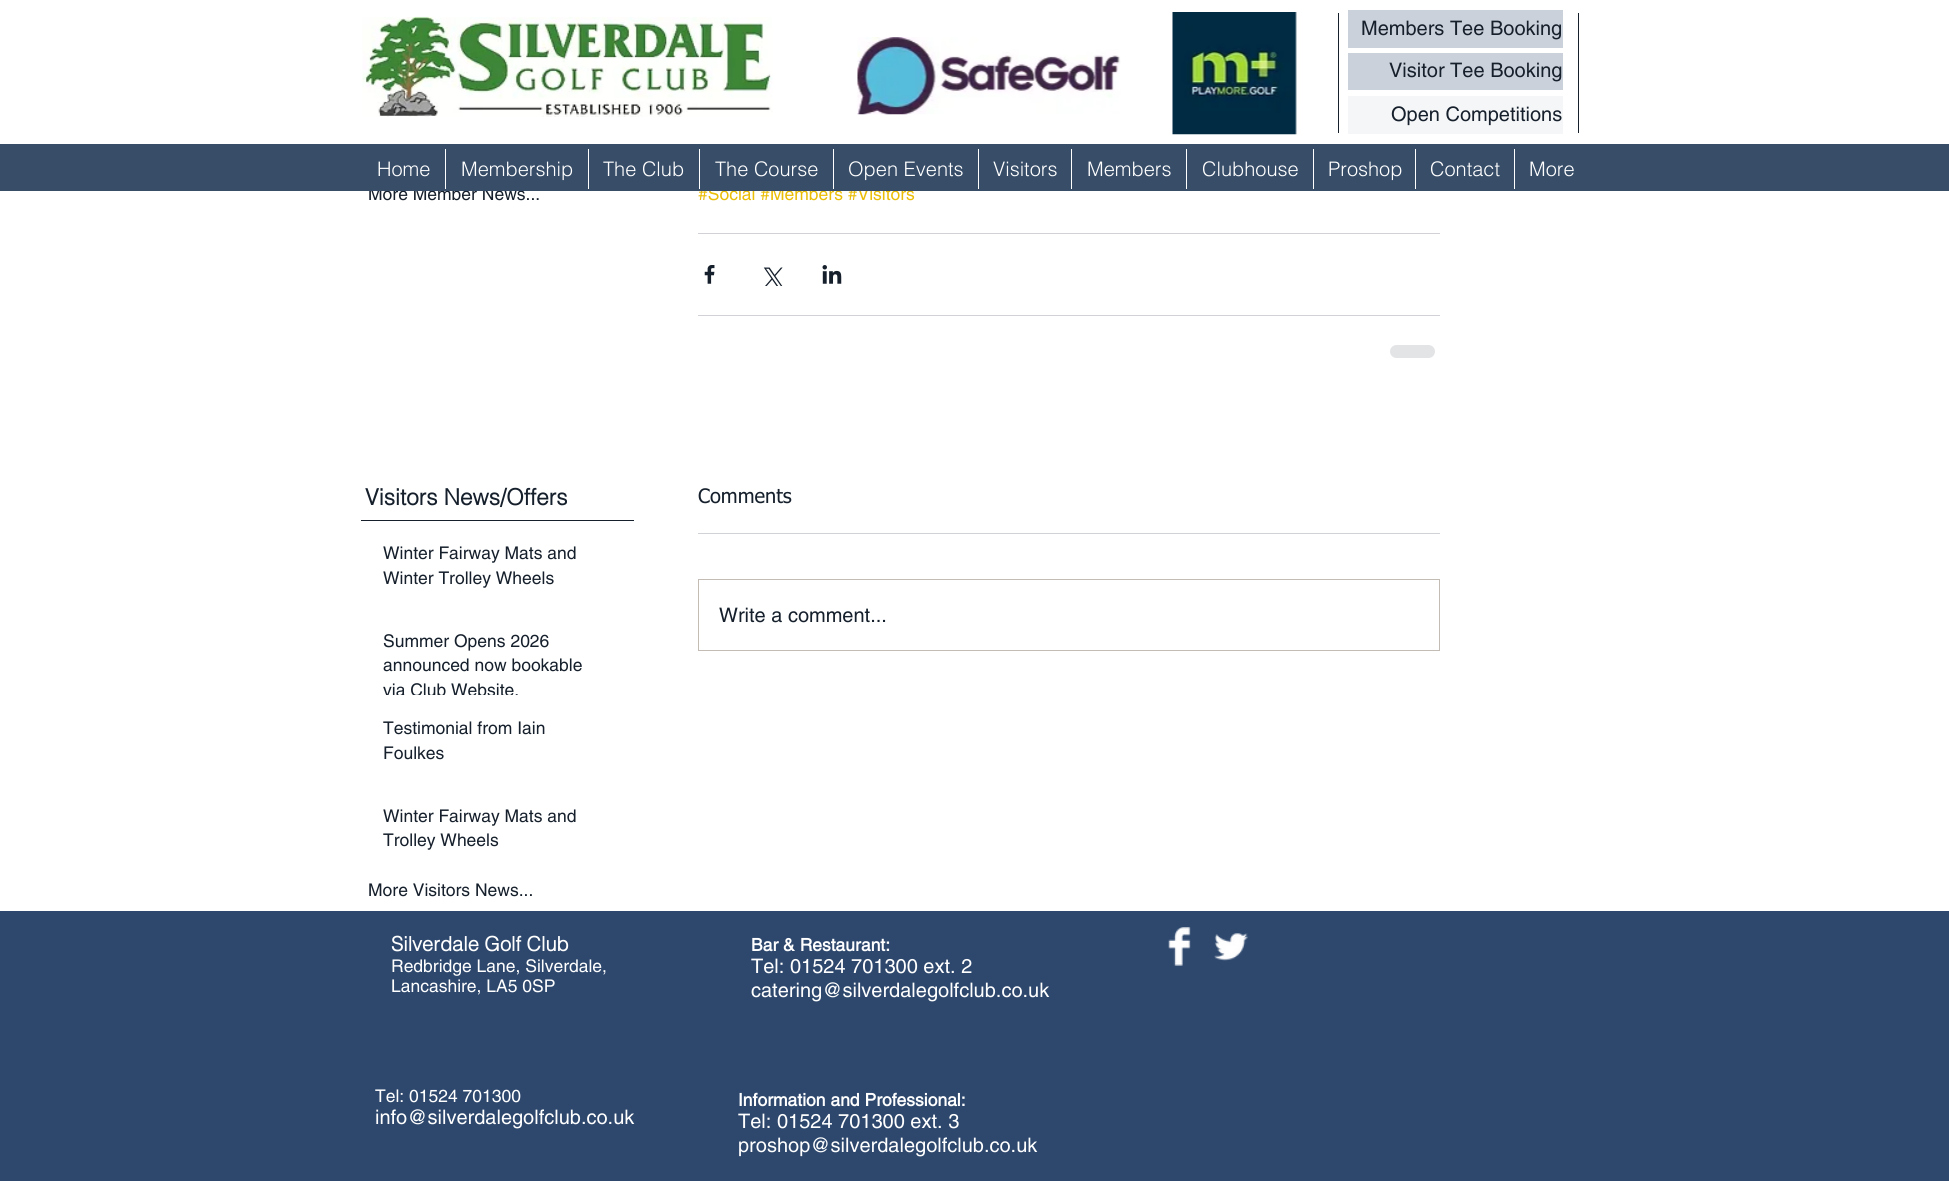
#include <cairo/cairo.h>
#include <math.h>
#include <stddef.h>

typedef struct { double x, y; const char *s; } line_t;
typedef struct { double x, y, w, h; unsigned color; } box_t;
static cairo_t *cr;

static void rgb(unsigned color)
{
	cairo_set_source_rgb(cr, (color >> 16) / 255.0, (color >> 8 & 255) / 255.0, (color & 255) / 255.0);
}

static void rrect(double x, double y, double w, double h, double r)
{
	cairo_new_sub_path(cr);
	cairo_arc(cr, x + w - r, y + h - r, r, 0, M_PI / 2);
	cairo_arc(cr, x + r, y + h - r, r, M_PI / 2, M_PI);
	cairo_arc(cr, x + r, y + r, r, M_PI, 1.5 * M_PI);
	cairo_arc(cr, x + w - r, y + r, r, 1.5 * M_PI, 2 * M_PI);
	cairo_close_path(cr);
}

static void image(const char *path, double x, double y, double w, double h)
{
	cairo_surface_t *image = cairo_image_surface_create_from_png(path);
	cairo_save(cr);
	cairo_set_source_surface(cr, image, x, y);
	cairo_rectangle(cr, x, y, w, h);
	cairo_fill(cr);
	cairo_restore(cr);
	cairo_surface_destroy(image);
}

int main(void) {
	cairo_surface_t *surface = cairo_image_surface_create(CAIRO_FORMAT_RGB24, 1949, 1181);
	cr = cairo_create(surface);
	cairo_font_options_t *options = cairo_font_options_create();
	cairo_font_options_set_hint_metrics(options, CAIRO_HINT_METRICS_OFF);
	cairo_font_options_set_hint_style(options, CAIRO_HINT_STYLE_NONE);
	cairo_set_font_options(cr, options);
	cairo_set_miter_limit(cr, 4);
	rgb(0xffffff);
	cairo_paint(cr);
	image("img/1.png", 362, 16, 411, 101);
	image("img/2.png", 1172, 12, 125, 123);
	{
		static const box_t items[] = {
			{1338, 13, 1, 120, 0x16202c},
			{1348, 10, 215, 38, 0xcbd1db},
			{1578, 13, 1, 120, 0x16202c},
		};
		for (size_t i = 0; i < sizeof items / sizeof *items; i++) {
			rgb(items[i].color);
			cairo_rectangle(cr, items[i].x, items[i].y, items[i].w, items[i].h);
			cairo_fill(cr);
		}
	}
	image("img/3.png", 857, 37, 264, 78);
	{
		static const box_t items[] = {
			{1348, 53, 215, 37, 0xcbd1db},
			{1348, 96, 215, 38, 0xf5f6f8},
			{698, 233, 742, 1, 0xd0d2d5},
		};
		for (size_t i = 0; i < sizeof items / sizeof *items; i++) {
			rgb(items[i].color);
			cairo_rectangle(cr, items[i].x, items[i].y, items[i].w, items[i].h);
			cairo_fill(cr);
		}
	}
	image("img/4.png", 704, 265, 11, 19);
	image("img/5.png", 763, 267, 20, 19);
	image("img/6.png", 822, 265, 20, 19);
	cairo_rectangle(cr, 698, 315, 742, 1);
	cairo_fill(cr);
	rgb(0xe3e4e6);
	rrect(1390, 345, 45, 13, 6.5);
	cairo_fill(cr);
	rgb(0xd0d2d5);
	cairo_rectangle(cr, 698, 533, 742, 1);
	cairo_fill(cr);
	cairo_rectangle(cr, 698.5, 579.5, 741, 71);
	rgb(0xc2bcb5);
	cairo_set_line_width(cr, 1);
	cairo_stroke(cr);
	rgb(0x16202c);
	cairo_rectangle(cr, 361, 520, 273, 1);
	cairo_fill(cr);
	rgb(0x2e486d);
	cairo_rectangle(cr, 0, 911, 1949, 270);
	cairo_fill(cr);
	image("img/7.png", 1168, 927, 23, 39);
	image("img/8.png", 1214, 933, 35, 28);
	cairo_select_font_face(cr, "helvetica", CAIRO_FONT_SLANT_NORMAL, CAIRO_FONT_WEIGHT_NORMAL);
	cairo_set_font_size(cr, 20);
	rgb(0x16202c);
	{
		static const line_t items[] = {
			{1361, 35, "Members Tee Booking"},
			{1389, 77, "Visitor Tee Booking"},
			{1391, 121, "Open Competitions"},
		};
		for (size_t i = 0; i < sizeof items / sizeof *items; i++) {
			cairo_move_to(cr, items[i].x, items[i].y);
			cairo_show_text(cr, items[i].s);
		}
	}
	cairo_set_font_size(cr, 17.5);
	cairo_move_to(cr, 368, 200);
	cairo_show_text(cr, "More Member News...");
	rgb(0xeabd07);
	cairo_move_to(cr, 698, 200);
	cairo_show_text(cr, "#Social #Members #Visitors");
	rgb(0x374d68);
	cairo_rectangle(cr, 0, 144, 1949, 47);
	cairo_fill(cr);
	cairo_select_font_face(cr, "helvetica Light", CAIRO_FONT_SLANT_NORMAL, CAIRO_FONT_WEIGHT_NORMAL);
	cairo_set_font_size(cr, 20);
	rgb(0xffffff);
	cairo_move_to(cr, 1529, 176);
	cairo_show_text(cr, "More");
	cairo_rectangle(cr, 1514, 149, 1, 40);
	cairo_fill(cr);
	cairo_move_to(cr, 1430, 176);
	cairo_show_text(cr, "Contact");
	cairo_rectangle(cr, 1415, 149, 1, 40);
	cairo_fill(cr);
	cairo_move_to(cr, 1328, 176);
	cairo_show_text(cr, "Proshop");
	cairo_rectangle(cr, 1313, 149, 1, 40);
	cairo_fill(cr);
	cairo_move_to(cr, 1202, 176);
	cairo_show_text(cr, "Clubhouse");
	cairo_rectangle(cr, 1186, 149, 1, 40);
	cairo_fill(cr);
	cairo_move_to(cr, 1087, 176);
	cairo_show_text(cr, "Members");
	cairo_rectangle(cr, 1071, 149, 1, 40);
	cairo_fill(cr);
	cairo_move_to(cr, 993, 176);
	cairo_show_text(cr, "Visitors");
	cairo_rectangle(cr, 978, 149, 1, 40);
	cairo_fill(cr);
	cairo_move_to(cr, 848, 176);
	cairo_show_text(cr, "Open Events");
	cairo_rectangle(cr, 833, 149, 1, 40);
	cairo_fill(cr);
	cairo_move_to(cr, 715, 176);
	cairo_show_text(cr, "The Course");
	cairo_rectangle(cr, 699, 149, 1, 40);
	cairo_fill(cr);
	cairo_move_to(cr, 603, 176);
	cairo_show_text(cr, "The Club");
	cairo_rectangle(cr, 588, 149, 1, 40);
	cairo_fill(cr);
	cairo_move_to(cr, 461, 176);
	cairo_show_text(cr, "Membership");
	cairo_rectangle(cr, 445, 149, 1, 40);
	cairo_fill(cr);
	cairo_move_to(cr, 377, 176);
	cairo_show_text(cr, "Home");
	cairo_select_font_face(cr, "tahoma", CAIRO_FONT_SLANT_NORMAL, CAIRO_FONT_WEIGHT_NORMAL);
	rgb(0x16202c);
	cairo_move_to(cr, 698, 503);
	cairo_show_text(cr, "Comments");
	cairo_select_font_face(cr, "helvetica", CAIRO_FONT_SLANT_NORMAL, CAIRO_FONT_WEIGHT_NORMAL);
	cairo_move_to(cr, 719, 622);
	cairo_show_text(cr, "Write a comment...");
	cairo_select_font_face(cr, "helvetica", CAIRO_FONT_SLANT_NORMAL, CAIRO_FONT_WEIGHT_BOLD);
	cairo_set_font_size(cr, 22.5);
	cairo_move_to(cr, 365, 505);
	cairo_show_text(cr, "Visitors News/Offers");
	cairo_select_font_face(cr, "helvetica", CAIRO_FONT_SLANT_NORMAL, CAIRO_FONT_WEIGHT_NORMAL);
	cairo_set_font_size(cr, 17.5);
	{
		static const line_t items[] = {
			{383, 559, "Winter Fairway Mats and"},
			{383, 584, "Winter Trolley Wheels"},
			{383, 647, "Summer Opens 2026"},
			{383, 671, "announced now bookable"},
		};
		for (size_t i = 0; i < sizeof items / sizeof *items; i++) {
			cairo_move_to(cr, items[i].x, items[i].y);
			cairo_show_text(cr, items[i].s);
		}
	}
	cairo_save(cr);
	cairo_rectangle(cr, 383, 629, 215, 66);
	cairo_clip(cr);
	cairo_move_to(cr, 383, 696);
	cairo_show_text(cr, "via Club Website.");
	cairo_restore(cr);
	{
		static const line_t items[] = {
			{383, 734, "Testimonial from Iain"},
			{383, 759, "Foulkes"},
			{383, 822, "Winter Fairway Mats and"},
			{383, 846, "Trolley Wheels"},
			{368, 896, "More Visitors News..."},
		};
		for (size_t i = 0; i < sizeof items / sizeof *items; i++) {
			cairo_move_to(cr, items[i].x, items[i].y);
			cairo_show_text(cr, items[i].s);
		}
	}
	cairo_select_font_face(cr, "helvetica", CAIRO_FONT_SLANT_NORMAL, CAIRO_FONT_WEIGHT_BOLD);
	cairo_set_font_size(cr, 20);
	rgb(0xffffff);
	cairo_move_to(cr, 391, 951);
	cairo_show_text(cr, "Silverdale Golf Club");
	cairo_select_font_face(cr, "helvetica", CAIRO_FONT_SLANT_NORMAL, CAIRO_FONT_WEIGHT_NORMAL);
	cairo_set_font_size(cr, 17.5);
	cairo_move_to(cr, 391, 972);
	cairo_show_text(cr, "Redbridge Lane, Silverdale,");
	cairo_move_to(cr, 391, 992);
	cairo_show_text(cr, "Lancashire, LA5 0SP");
	cairo_select_font_face(cr, "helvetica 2", CAIRO_FONT_SLANT_NORMAL, CAIRO_FONT_WEIGHT_BOLD);
	cairo_move_to(cr, 751, 951);
	cairo_show_text(cr, "Bar & Restaurant:");
	cairo_select_font_face(cr, "helvetica", CAIRO_FONT_SLANT_NORMAL, CAIRO_FONT_WEIGHT_NORMAL);
	cairo_set_font_size(cr, 20);
	cairo_move_to(cr, 751, 973);
	cairo_show_text(cr, "Tel: 01524 701300 ext. 2");
	cairo_move_to(cr, 751, 997);
	cairo_show_text(cr, "catering@silverdalegolfclub.co.uk");
	cairo_set_font_size(cr, 17.5);
	cairo_move_to(cr, 375, 1102);
	cairo_show_text(cr, "Tel: 01524 701300");
	cairo_set_font_size(cr, 20);
	cairo_move_to(cr, 375, 1124);
	cairo_show_text(cr, "info@silverdalegolfclub.co.uk");
	cairo_select_font_face(cr, "helvetica 2", CAIRO_FONT_SLANT_NORMAL, CAIRO_FONT_WEIGHT_BOLD);
	cairo_set_font_size(cr, 17.5);
	cairo_move_to(cr, 738, 1106);
	cairo_show_text(cr, "Information and Professional:");
	cairo_select_font_face(cr, "helvetica", CAIRO_FONT_SLANT_NORMAL, CAIRO_FONT_WEIGHT_NORMAL);
	cairo_set_font_size(cr, 20);
	cairo_move_to(cr, 738, 1128);
	cairo_show_text(cr, "Tel: 01524 701300 ext. 3");
	cairo_move_to(cr, 738, 1152);
	cairo_show_text(cr, "proshop@silverdalegolfclub.co.uk");
	cairo_surface_write_to_png(surface, "page.png");
	cairo_font_options_destroy(options);
	cairo_destroy(cr);
	cairo_surface_destroy(surface);
	return 0;
}
